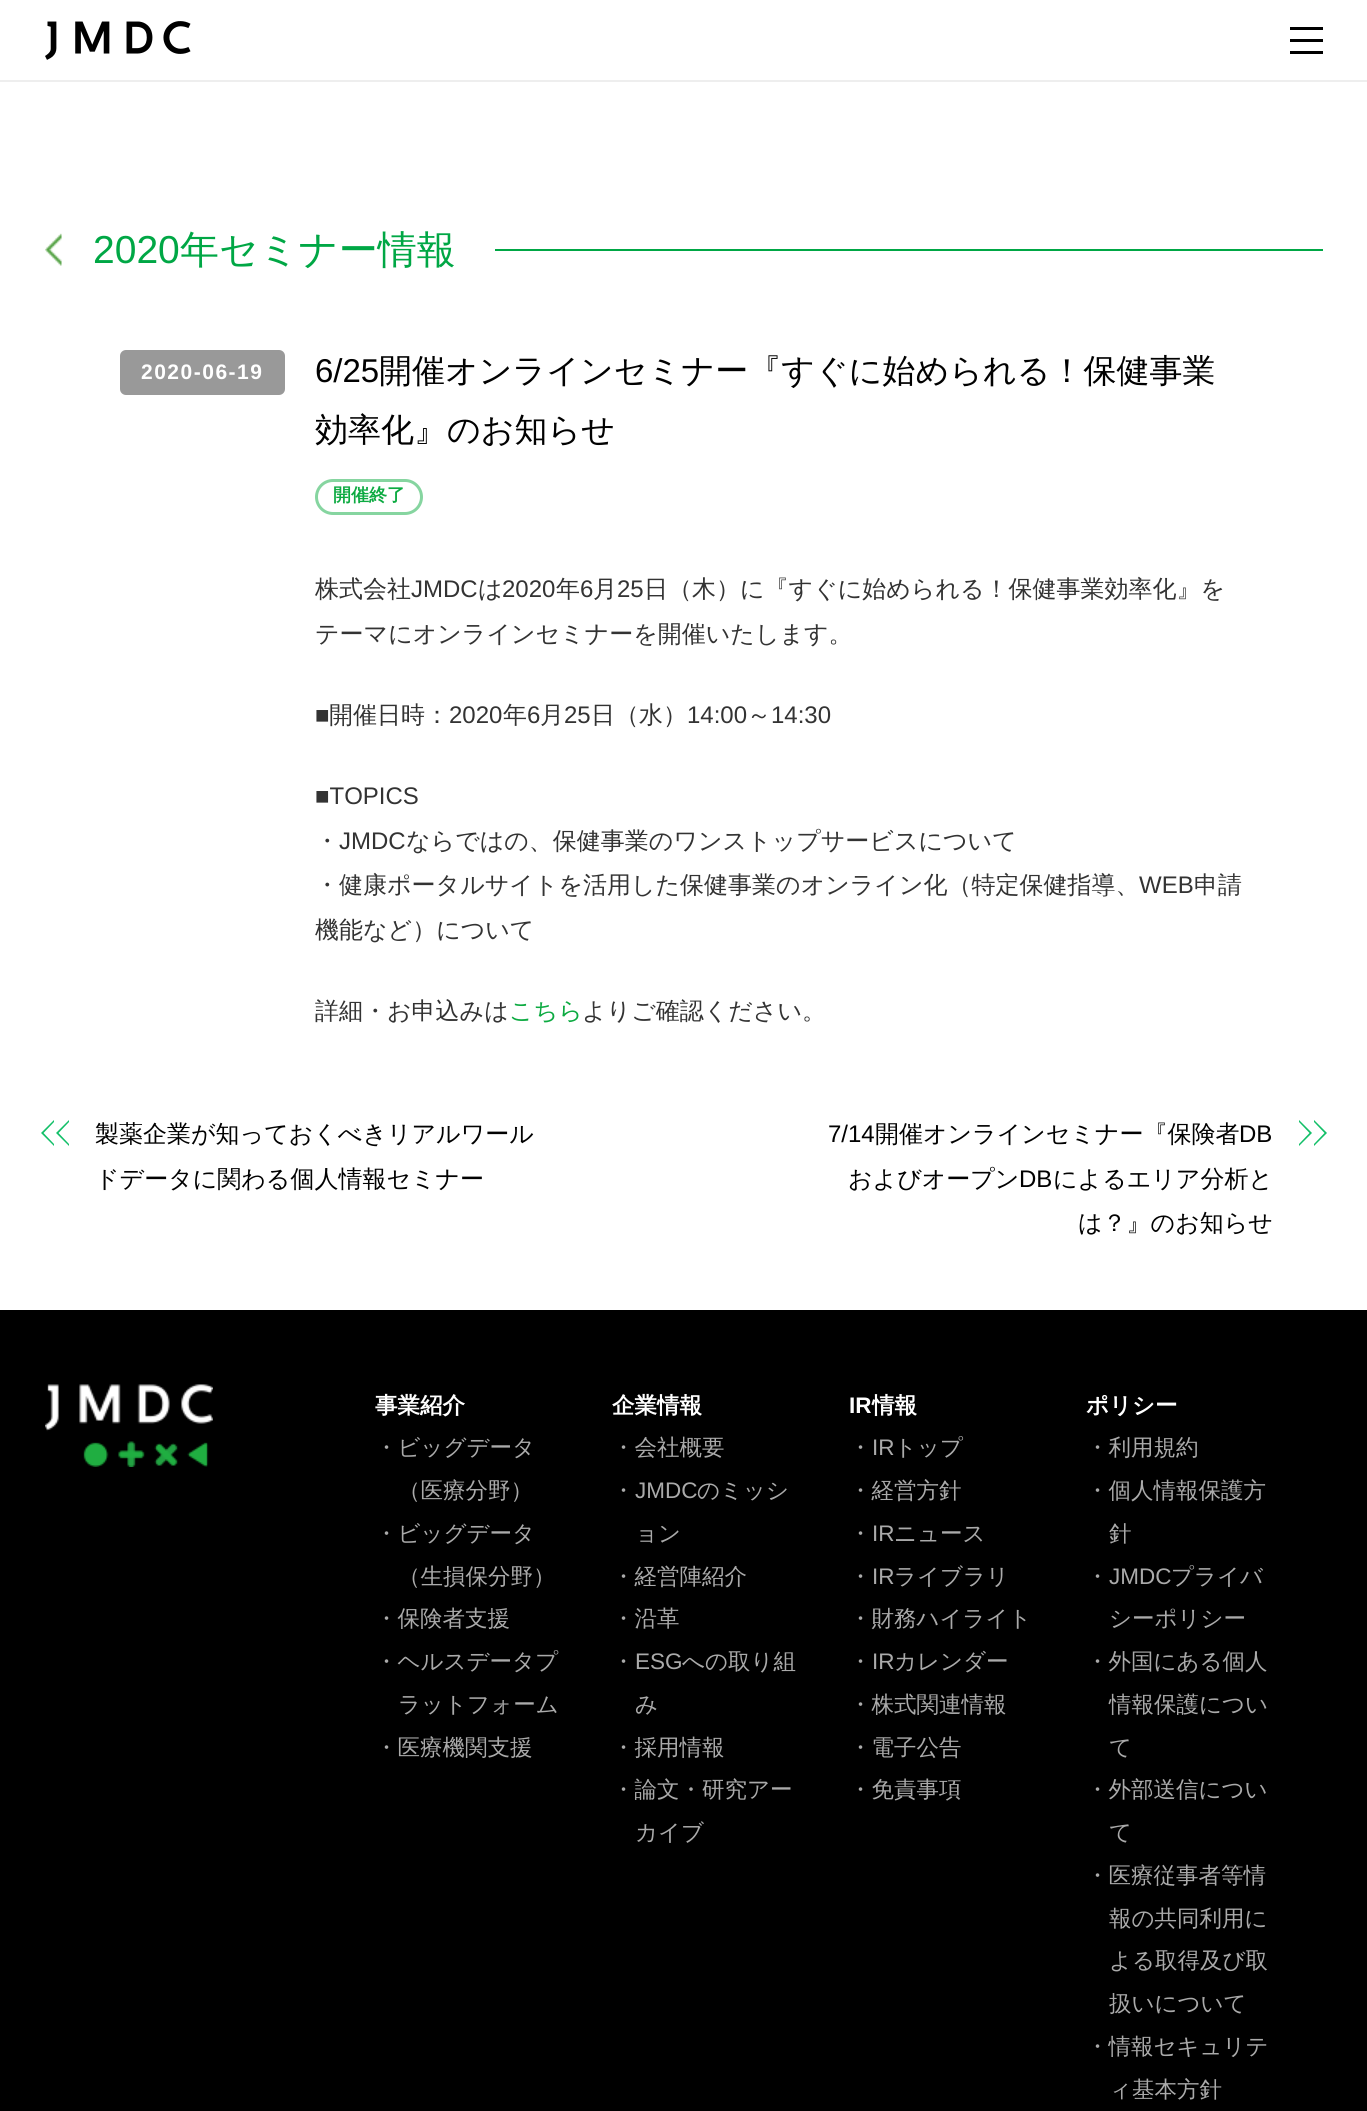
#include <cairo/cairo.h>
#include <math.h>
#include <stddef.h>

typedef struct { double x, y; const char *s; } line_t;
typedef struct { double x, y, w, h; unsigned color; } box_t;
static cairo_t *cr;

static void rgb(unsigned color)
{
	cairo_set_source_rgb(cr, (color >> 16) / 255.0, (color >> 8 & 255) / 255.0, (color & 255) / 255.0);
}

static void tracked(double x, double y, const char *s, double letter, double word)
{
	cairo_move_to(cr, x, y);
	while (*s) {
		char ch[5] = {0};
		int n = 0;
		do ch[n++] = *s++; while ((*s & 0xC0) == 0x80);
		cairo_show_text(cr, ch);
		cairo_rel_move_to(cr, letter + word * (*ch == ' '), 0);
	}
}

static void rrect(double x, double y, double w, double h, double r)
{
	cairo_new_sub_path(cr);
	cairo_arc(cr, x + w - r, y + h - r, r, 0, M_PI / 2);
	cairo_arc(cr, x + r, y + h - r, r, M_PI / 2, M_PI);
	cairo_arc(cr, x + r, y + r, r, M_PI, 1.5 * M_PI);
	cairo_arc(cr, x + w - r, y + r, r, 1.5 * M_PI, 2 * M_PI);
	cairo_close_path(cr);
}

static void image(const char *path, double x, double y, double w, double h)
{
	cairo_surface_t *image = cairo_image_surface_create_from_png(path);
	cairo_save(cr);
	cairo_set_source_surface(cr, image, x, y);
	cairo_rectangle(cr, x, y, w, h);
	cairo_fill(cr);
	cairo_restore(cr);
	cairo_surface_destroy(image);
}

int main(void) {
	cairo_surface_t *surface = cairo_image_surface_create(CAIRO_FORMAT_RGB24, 1367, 2111);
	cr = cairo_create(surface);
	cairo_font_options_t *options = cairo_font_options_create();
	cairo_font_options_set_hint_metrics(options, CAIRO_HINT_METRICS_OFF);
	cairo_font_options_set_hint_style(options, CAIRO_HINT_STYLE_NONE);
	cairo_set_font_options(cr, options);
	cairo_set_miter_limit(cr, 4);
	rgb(0xffffff);
	cairo_paint(cr);
	rgb(0xeeeeee);
	cairo_rectangle(cr, 0, 80, 1367, 2);
	cairo_fill(cr);
	image("img/1.png", 45, 21, 146, 39);
	{
		static const box_t items[] = {
			{1290, 27, 33, 3, 0x000000},
			{1290, 39, 33, 3, 0x000000},
			{1290, 51, 33, 3, 0x000000},
		};
		for (size_t i = 0; i < sizeof items / sizeof *items; i++) {
			rgb(items[i].color);
			cairo_rectangle(cr, items[i].x, items[i].y, items[i].w, items[i].h);
			cairo_fill(cr);
		}
	}
	image("img/2.png", 45, 233, 17, 33);
	rgb(0x00a745);
	cairo_rectangle(cr, 495, 249, 828, 2);
	cairo_fill(cr);
	rgb(0x999999);
	rrect(120, 350, 165, 45, 6);
	cairo_fill(cr);
	rrect(316.5, 480.5, 105, 33, 16.5);
	rgb(0x86d5a0);
	cairo_set_line_width(cr, 3);
	cairo_stroke(cr);
	rgb(0x12bf68);
	cairo_new_path(cr);
	cairo_move_to(cr, 41, 1133);
	cairo_line_to(cr, 54, 1120);
	cairo_line_to(cr, 54, 1122);
	cairo_line_to(cr, 43.5, 1133);
	cairo_close_path(cr);
	cairo_move_to(cr, 54, 1146);
	cairo_line_to(cr, 41, 1133);
	cairo_line_to(cr, 43.5, 1133);
	cairo_line_to(cr, 54, 1144);
	cairo_close_path(cr);
	cairo_move_to(cr, 56, 1133);
	cairo_line_to(cr, 69, 1120);
	cairo_line_to(cr, 69, 1122);
	cairo_line_to(cr, 58.5, 1133);
	cairo_close_path(cr);
	cairo_fill(cr);
	cairo_new_path(cr);
	cairo_move_to(cr, 69, 1146);
	cairo_line_to(cr, 56, 1133);
	cairo_line_to(cr, 58.5, 1133);
	cairo_line_to(cr, 69, 1144);
	cairo_close_path(cr);
	cairo_fill(cr);
	cairo_new_path(cr);
	cairo_move_to(cr, 1327, 1133);
	cairo_line_to(cr, 1314, 1146);
	cairo_line_to(cr, 1314, 1144);
	cairo_line_to(cr, 1324.5, 1133);
	cairo_close_path(cr);
	cairo_move_to(cr, 1314, 1120);
	cairo_line_to(cr, 1327, 1133);
	cairo_line_to(cr, 1324.5, 1133);
	cairo_line_to(cr, 1314, 1122);
	cairo_close_path(cr);
	cairo_move_to(cr, 1312, 1133);
	cairo_line_to(cr, 1299, 1146);
	cairo_line_to(cr, 1299, 1144);
	cairo_line_to(cr, 1309.5, 1133);
	cairo_close_path(cr);
	cairo_fill(cr);
	cairo_new_path(cr);
	cairo_move_to(cr, 1299, 1120);
	cairo_line_to(cr, 1312, 1133);
	cairo_line_to(cr, 1309.5, 1133);
	cairo_line_to(cr, 1299, 1122);
	cairo_close_path(cr);
	cairo_fill(cr);
	rgb(0x000000);
	cairo_rectangle(cr, 0, 1310, 1367, 801);
	cairo_fill(cr);
	image("img/3.png", 45, 1384, 168, 83);
	cairo_select_font_face(cr, "Liberation Sans", CAIRO_FONT_SLANT_NORMAL, CAIRO_FONT_WEIGHT_NORMAL);
	cairo_set_font_size(cr, 39);
	rgb(0x00a745);
	cairo_move_to(cr, 93, 263);
	cairo_show_text(cr, "2020");
	cairo_select_font_face(cr, "WenQuanYi Zen Hei Medium", CAIRO_FONT_SLANT_NORMAL, CAIRO_FONT_WEIGHT_NORMAL);
	cairo_move_to(cr, 180, 263);
	cairo_show_text(cr, "年セミナー情報");
	cairo_select_font_face(cr, "Liberation Sans", CAIRO_FONT_SLANT_NORMAL, CAIRO_FONT_WEIGHT_BOLD);
	cairo_set_font_size(cr, 21);
	rgb(0xffffff);
	tracked(141, 379, "2020-06-19", 1.5, 0);
	cairo_select_font_face(cr, "Liberation Sans", CAIRO_FONT_SLANT_NORMAL, CAIRO_FONT_WEIGHT_NORMAL);
	cairo_set_font_size(cr, 33);
	rgb(0x010101);
	cairo_move_to(cr, 315, 382);
	cairo_show_text(cr, "6/25");
	cairo_select_font_face(cr, "WenQuanYi Zen Hei Medium", CAIRO_FONT_SLANT_NORMAL, CAIRO_FONT_WEIGHT_NORMAL);
	cairo_move_to(cr, 379, 382);
	cairo_show_text(cr, "開催オンラインセミナー『すぐに始められる！保健事業");
	cairo_move_to(cr, 315, 441);
	cairo_show_text(cr, "効率化』のお知らせ");
	cairo_select_font_face(cr, "WenQuanYi Zen Hei", CAIRO_FONT_SLANT_NORMAL, CAIRO_FONT_WEIGHT_BOLD);
	cairo_set_font_size(cr, 18);
	rgb(0x0caa41);
	cairo_move_to(cr, 333, 501);
	cairo_show_text(cr, "開催終了");
	cairo_select_font_face(cr, "WenQuanYi Zen Hei Medium", CAIRO_FONT_SLANT_NORMAL, CAIRO_FONT_WEIGHT_NORMAL);
	cairo_set_font_size(cr, 24);
	rgb(0x333333);
	cairo_move_to(cr, 315, 597);
	cairo_show_text(cr, "株式会社");
	cairo_select_font_face(cr, "Liberation Sans", CAIRO_FONT_SLANT_NORMAL, CAIRO_FONT_WEIGHT_NORMAL);
	cairo_move_to(cr, 411, 597);
	cairo_show_text(cr, "JMDC");
	cairo_select_font_face(cr, "WenQuanYi Zen Hei Medium", CAIRO_FONT_SLANT_NORMAL, CAIRO_FONT_WEIGHT_NORMAL);
	cairo_move_to(cr, 478, 597);
	cairo_show_text(cr, "は");
	cairo_select_font_face(cr, "Liberation Sans", CAIRO_FONT_SLANT_NORMAL, CAIRO_FONT_WEIGHT_NORMAL);
	cairo_move_to(cr, 502, 597);
	cairo_show_text(cr, "2020");
	cairo_select_font_face(cr, "WenQuanYi Zen Hei Medium", CAIRO_FONT_SLANT_NORMAL, CAIRO_FONT_WEIGHT_NORMAL);
	cairo_move_to(cr, 556, 597);
	cairo_show_text(cr, "年");
	cairo_select_font_face(cr, "Liberation Sans", CAIRO_FONT_SLANT_NORMAL, CAIRO_FONT_WEIGHT_NORMAL);
	cairo_move_to(cr, 580, 597);
	cairo_show_text(cr, "6");
	cairo_select_font_face(cr, "WenQuanYi Zen Hei Medium", CAIRO_FONT_SLANT_NORMAL, CAIRO_FONT_WEIGHT_NORMAL);
	cairo_move_to(cr, 593, 597);
	cairo_show_text(cr, "月");
	cairo_select_font_face(cr, "Liberation Sans", CAIRO_FONT_SLANT_NORMAL, CAIRO_FONT_WEIGHT_NORMAL);
	cairo_move_to(cr, 617, 597);
	cairo_show_text(cr, "25");
	cairo_select_font_face(cr, "WenQuanYi Zen Hei Medium", CAIRO_FONT_SLANT_NORMAL, CAIRO_FONT_WEIGHT_NORMAL);
	cairo_move_to(cr, 644, 597);
	cairo_show_text(cr, "日（木）に『すぐに始められる！保健事業効率化』を");
	cairo_move_to(cr, 315, 642);
	cairo_show_text(cr, "テーマにオンラインセミナーを開催いたします。");
	cairo_select_font_face(cr, "Liberation Sans", CAIRO_FONT_SLANT_NORMAL, CAIRO_FONT_WEIGHT_NORMAL);
	cairo_move_to(cr, 315, 723);
	cairo_show_text(cr, "■");
	cairo_select_font_face(cr, "WenQuanYi Zen Hei Medium", CAIRO_FONT_SLANT_NORMAL, CAIRO_FONT_WEIGHT_NORMAL);
	cairo_move_to(cr, 329, 723);
	cairo_show_text(cr, "開催日時：");
	cairo_select_font_face(cr, "Liberation Sans", CAIRO_FONT_SLANT_NORMAL, CAIRO_FONT_WEIGHT_NORMAL);
	cairo_move_to(cr, 449, 723);
	cairo_show_text(cr, "2020");
	cairo_select_font_face(cr, "WenQuanYi Zen Hei Medium", CAIRO_FONT_SLANT_NORMAL, CAIRO_FONT_WEIGHT_NORMAL);
	cairo_move_to(cr, 503, 723);
	cairo_show_text(cr, "年");
	cairo_select_font_face(cr, "Liberation Sans", CAIRO_FONT_SLANT_NORMAL, CAIRO_FONT_WEIGHT_NORMAL);
	cairo_move_to(cr, 527, 723);
	cairo_show_text(cr, "6");
	cairo_select_font_face(cr, "WenQuanYi Zen Hei Medium", CAIRO_FONT_SLANT_NORMAL, CAIRO_FONT_WEIGHT_NORMAL);
	cairo_move_to(cr, 540, 723);
	cairo_show_text(cr, "月");
	cairo_select_font_face(cr, "Liberation Sans", CAIRO_FONT_SLANT_NORMAL, CAIRO_FONT_WEIGHT_NORMAL);
	cairo_move_to(cr, 564, 723);
	cairo_show_text(cr, "25");
	cairo_select_font_face(cr, "WenQuanYi Zen Hei Medium", CAIRO_FONT_SLANT_NORMAL, CAIRO_FONT_WEIGHT_NORMAL);
	cairo_move_to(cr, 591, 723);
	cairo_show_text(cr, "日（水）");
	cairo_select_font_face(cr, "Liberation Sans", CAIRO_FONT_SLANT_NORMAL, CAIRO_FONT_WEIGHT_NORMAL);
	cairo_move_to(cr, 687, 723);
	cairo_show_text(cr, "14:00");
	cairo_select_font_face(cr, "WenQuanYi Zen Hei Medium", CAIRO_FONT_SLANT_NORMAL, CAIRO_FONT_WEIGHT_NORMAL);
	cairo_move_to(cr, 747, 723);
	cairo_show_text(cr, "～");
	cairo_select_font_face(cr, "Liberation Sans", CAIRO_FONT_SLANT_NORMAL, CAIRO_FONT_WEIGHT_NORMAL);
	cairo_move_to(cr, 771, 723);
	cairo_show_text(cr, "14:30");
	cairo_move_to(cr, 315, 804);
	cairo_show_text(cr, "■TOPICS");
	cairo_select_font_face(cr, "WenQuanYi Zen Hei Medium", CAIRO_FONT_SLANT_NORMAL, CAIRO_FONT_WEIGHT_NORMAL);
	cairo_move_to(cr, 315, 849);
	cairo_show_text(cr, "・");
	cairo_select_font_face(cr, "Liberation Sans", CAIRO_FONT_SLANT_NORMAL, CAIRO_FONT_WEIGHT_NORMAL);
	cairo_move_to(cr, 339, 849);
	cairo_show_text(cr, "JMDC");
	cairo_select_font_face(cr, "WenQuanYi Zen Hei Medium", CAIRO_FONT_SLANT_NORMAL, CAIRO_FONT_WEIGHT_NORMAL);
	cairo_move_to(cr, 406, 849);
	cairo_show_text(cr, "ならではの、保健事業のワンストップサービスについて");
	cairo_move_to(cr, 315, 893);
	cairo_show_text(cr, "・健康ポータルサイトを活用した保健事業のオンライン化（特定保健指導、");
	cairo_select_font_face(cr, "Liberation Sans", CAIRO_FONT_SLANT_NORMAL, CAIRO_FONT_WEIGHT_NORMAL);
	cairo_move_to(cr, 1139, 893);
	cairo_show_text(cr, "WEB");
	cairo_select_font_face(cr, "WenQuanYi Zen Hei Medium", CAIRO_FONT_SLANT_NORMAL, CAIRO_FONT_WEIGHT_NORMAL);
	{
		static const line_t items[] = {
			{1194, 893, "申請"},
			{315, 938, "機能など）について"},
			{315, 1019, "詳細・お申込みは"},
		};
		for (size_t i = 0; i < sizeof items / sizeof *items; i++) {
			cairo_move_to(cr, items[i].x, items[i].y);
			cairo_show_text(cr, items[i].s);
		}
	}
	rgb(0x0caa41);
	cairo_move_to(cr, 509, 1019);
	cairo_show_text(cr, "こちら");
	rgb(0x333333);
	cairo_move_to(cr, 582, 1019);
	cairo_show_text(cr, "よりご確認ください。");
	rgb(0x010101);
	cairo_move_to(cr, 95, 1142);
	cairo_show_text(cr, "製薬企業が知っておくべきリアルワール");
	cairo_move_to(cr, 95, 1187);
	cairo_show_text(cr, "ドデータに関わる個人情報セミナー");
	cairo_select_font_face(cr, "Liberation Sans", CAIRO_FONT_SLANT_NORMAL, CAIRO_FONT_WEIGHT_NORMAL);
	cairo_move_to(cr, 828, 1142);
	cairo_show_text(cr, "7/14");
	cairo_select_font_face(cr, "WenQuanYi Zen Hei Medium", CAIRO_FONT_SLANT_NORMAL, CAIRO_FONT_WEIGHT_NORMAL);
	cairo_move_to(cr, 875, 1142);
	cairo_show_text(cr, "開催オンラインセミナー『保険者");
	cairo_select_font_face(cr, "Liberation Sans", CAIRO_FONT_SLANT_NORMAL, CAIRO_FONT_WEIGHT_NORMAL);
	cairo_move_to(cr, 1239, 1142);
	cairo_show_text(cr, "DB");
	cairo_select_font_face(cr, "WenQuanYi Zen Hei Medium", CAIRO_FONT_SLANT_NORMAL, CAIRO_FONT_WEIGHT_NORMAL);
	cairo_move_to(cr, 848, 1187);
	cairo_show_text(cr, "およびオープン");
	cairo_select_font_face(cr, "Liberation Sans", CAIRO_FONT_SLANT_NORMAL, CAIRO_FONT_WEIGHT_NORMAL);
	cairo_move_to(cr, 1019, 1187);
	cairo_show_text(cr, "DB");
	cairo_select_font_face(cr, "WenQuanYi Zen Hei Medium", CAIRO_FONT_SLANT_NORMAL, CAIRO_FONT_WEIGHT_NORMAL);
	cairo_move_to(cr, 1053, 1187);
	cairo_show_text(cr, "によるエリア分析と");
	cairo_move_to(cr, 1078, 1231);
	cairo_show_text(cr, "は？』のお知らせ");
	cairo_select_font_face(cr, "WenQuanYi Zen Hei", CAIRO_FONT_SLANT_NORMAL, CAIRO_FONT_WEIGHT_BOLD);
	cairo_set_font_size(cr, 22.5);
	rgb(0xffffff);
	cairo_move_to(cr, 375, 1413);
	cairo_show_text(cr, "事業紹介");
	cairo_select_font_face(cr, "WenQuanYi Zen Hei Medium", CAIRO_FONT_SLANT_NORMAL, CAIRO_FONT_WEIGHT_NORMAL);
	rgb(0xaaaaaa);
	{
		static const line_t items[] = {
			{375, 1455, "・ビッグデータ"},
			{398, 1498, "（医療分野）"},
			{375, 1541, "・ビッグデータ"},
			{398, 1584, "（生損保分野）"},
			{375, 1626, "・保険者支援"},
			{375, 1669, "・ヘルスデータプ"},
			{398, 1712, "ラットフォーム"},
			{375, 1755, "・医療機関支援"},
		};
		for (size_t i = 0; i < sizeof items / sizeof *items; i++) {
			cairo_move_to(cr, items[i].x, items[i].y);
			cairo_show_text(cr, items[i].s);
		}
	}
	cairo_select_font_face(cr, "WenQuanYi Zen Hei", CAIRO_FONT_SLANT_NORMAL, CAIRO_FONT_WEIGHT_BOLD);
	rgb(0xffffff);
	cairo_move_to(cr, 612, 1413);
	cairo_show_text(cr, "企業情報");
	cairo_select_font_face(cr, "WenQuanYi Zen Hei Medium", CAIRO_FONT_SLANT_NORMAL, CAIRO_FONT_WEIGHT_NORMAL);
	rgb(0xaaaaaa);
	cairo_move_to(cr, 612, 1455);
	cairo_show_text(cr, "・会社概要");
	cairo_move_to(cr, 612, 1498);
	cairo_show_text(cr, "・");
	cairo_select_font_face(cr, "Liberation Sans", CAIRO_FONT_SLANT_NORMAL, CAIRO_FONT_WEIGHT_NORMAL);
	cairo_move_to(cr, 635, 1498);
	cairo_show_text(cr, "JMDC");
	cairo_select_font_face(cr, "WenQuanYi Zen Hei Medium", CAIRO_FONT_SLANT_NORMAL, CAIRO_FONT_WEIGHT_NORMAL);
	{
		static const line_t items[] = {
			{697, 1498, "のミッシ"},
			{635, 1541, "ョン"},
			{612, 1584, "・経営陣紹介"},
			{612, 1626, "・沿革"},
			{612, 1669, "・"},
		};
		for (size_t i = 0; i < sizeof items / sizeof *items; i++) {
			cairo_move_to(cr, items[i].x, items[i].y);
			cairo_show_text(cr, items[i].s);
		}
	}
	cairo_select_font_face(cr, "Liberation Sans", CAIRO_FONT_SLANT_NORMAL, CAIRO_FONT_WEIGHT_NORMAL);
	cairo_move_to(cr, 635, 1669);
	cairo_show_text(cr, "ESG");
	cairo_select_font_face(cr, "WenQuanYi Zen Hei Medium", CAIRO_FONT_SLANT_NORMAL, CAIRO_FONT_WEIGHT_NORMAL);
	{
		static const line_t items[] = {
			{682, 1669, "への取り組"},
			{635, 1712, "み"},
			{612, 1755, "・採用情報"},
			{612, 1797, "・論文・研究アー"},
			{635, 1840, "カイブ"},
		};
		for (size_t i = 0; i < sizeof items / sizeof *items; i++) {
			cairo_move_to(cr, items[i].x, items[i].y);
			cairo_show_text(cr, items[i].s);
		}
	}
	cairo_select_font_face(cr, "Liberation Sans", CAIRO_FONT_SLANT_NORMAL, CAIRO_FONT_WEIGHT_BOLD);
	rgb(0xffffff);
	cairo_move_to(cr, 849, 1413);
	cairo_show_text(cr, "IR");
	cairo_select_font_face(cr, "WenQuanYi Zen Hei", CAIRO_FONT_SLANT_NORMAL, CAIRO_FONT_WEIGHT_BOLD);
	cairo_move_to(cr, 872, 1413);
	cairo_show_text(cr, "情報");
	cairo_select_font_face(cr, "WenQuanYi Zen Hei Medium", CAIRO_FONT_SLANT_NORMAL, CAIRO_FONT_WEIGHT_NORMAL);
	rgb(0xaaaaaa);
	cairo_move_to(cr, 849, 1455);
	cairo_show_text(cr, "・");
	cairo_select_font_face(cr, "Liberation Sans", CAIRO_FONT_SLANT_NORMAL, CAIRO_FONT_WEIGHT_NORMAL);
	cairo_move_to(cr, 872, 1455);
	cairo_show_text(cr, "IR");
	cairo_select_font_face(cr, "WenQuanYi Zen Hei Medium", CAIRO_FONT_SLANT_NORMAL, CAIRO_FONT_WEIGHT_NORMAL);
	{
		static const line_t items[] = {
			{894, 1455, "トップ"},
			{849, 1498, "・経営方針"},
			{849, 1541, "・"},
		};
		for (size_t i = 0; i < sizeof items / sizeof *items; i++) {
			cairo_move_to(cr, items[i].x, items[i].y);
			cairo_show_text(cr, items[i].s);
		}
	}
	cairo_select_font_face(cr, "Liberation Sans", CAIRO_FONT_SLANT_NORMAL, CAIRO_FONT_WEIGHT_NORMAL);
	cairo_move_to(cr, 872, 1541);
	cairo_show_text(cr, "IR");
	cairo_select_font_face(cr, "WenQuanYi Zen Hei Medium", CAIRO_FONT_SLANT_NORMAL, CAIRO_FONT_WEIGHT_NORMAL);
	cairo_move_to(cr, 894, 1541);
	cairo_show_text(cr, "ニュース");
	cairo_move_to(cr, 849, 1584);
	cairo_show_text(cr, "・");
	cairo_select_font_face(cr, "Liberation Sans", CAIRO_FONT_SLANT_NORMAL, CAIRO_FONT_WEIGHT_NORMAL);
	cairo_move_to(cr, 872, 1584);
	cairo_show_text(cr, "IR");
	cairo_select_font_face(cr, "WenQuanYi Zen Hei Medium", CAIRO_FONT_SLANT_NORMAL, CAIRO_FONT_WEIGHT_NORMAL);
	{
		static const line_t items[] = {
			{894, 1584, "ライブラリ"},
			{849, 1626, "・財務ハイライト"},
			{849, 1669, "・"},
		};
		for (size_t i = 0; i < sizeof items / sizeof *items; i++) {
			cairo_move_to(cr, items[i].x, items[i].y);
			cairo_show_text(cr, items[i].s);
		}
	}
	cairo_select_font_face(cr, "Liberation Sans", CAIRO_FONT_SLANT_NORMAL, CAIRO_FONT_WEIGHT_NORMAL);
	cairo_move_to(cr, 872, 1669);
	cairo_show_text(cr, "IR");
	cairo_select_font_face(cr, "WenQuanYi Zen Hei Medium", CAIRO_FONT_SLANT_NORMAL, CAIRO_FONT_WEIGHT_NORMAL);
	{
		static const line_t items[] = {
			{894, 1669, "カレンダー"},
			{849, 1712, "・株式関連情報"},
			{849, 1755, "・電子公告"},
			{849, 1797, "・免責事項"},
		};
		for (size_t i = 0; i < sizeof items / sizeof *items; i++) {
			cairo_move_to(cr, items[i].x, items[i].y);
			cairo_show_text(cr, items[i].s);
		}
	}
	cairo_select_font_face(cr, "WenQuanYi Zen Hei", CAIRO_FONT_SLANT_NORMAL, CAIRO_FONT_WEIGHT_BOLD);
	rgb(0xffffff);
	cairo_move_to(cr, 1086, 1413);
	cairo_show_text(cr, "ポリシー");
	cairo_select_font_face(cr, "WenQuanYi Zen Hei Medium", CAIRO_FONT_SLANT_NORMAL, CAIRO_FONT_WEIGHT_NORMAL);
	rgb(0xaaaaaa);
	{
		static const line_t items[] = {
			{1086, 1455, "・利用規約"},
			{1086, 1498, "・個人情報保護方"},
			{1109, 1541, "針"},
			{1086, 1584, "・"},
		};
		for (size_t i = 0; i < sizeof items / sizeof *items; i++) {
			cairo_move_to(cr, items[i].x, items[i].y);
			cairo_show_text(cr, items[i].s);
		}
	}
	cairo_select_font_face(cr, "Liberation Sans", CAIRO_FONT_SLANT_NORMAL, CAIRO_FONT_WEIGHT_NORMAL);
	cairo_move_to(cr, 1109, 1584);
	cairo_show_text(cr, "JMDC");
	cairo_select_font_face(cr, "WenQuanYi Zen Hei Medium", CAIRO_FONT_SLANT_NORMAL, CAIRO_FONT_WEIGHT_NORMAL);
	{
		static const line_t items[] = {
			{1171, 1584, "プライバ"},
			{1109, 1626, "シーポリシー"},
			{1086, 1669, "・外国にある個人"},
			{1109, 1712, "情報保護につい"},
			{1109, 1755, "て"},
			{1086, 1797, "・外部送信につい"},
			{1109, 1840, "て"},
			{1086, 1883, "・医療従事者等情"},
			{1109, 1926, "報の共同利用に"},
			{1109, 1968, "よる取得及び取"},
			{1109, 2011, "扱いについて"},
			{1086, 2054, "・情報セキュリテ"},
			{1109, 2097, "ィ基本方針"},
		};
		for (size_t i = 0; i < sizeof items / sizeof *items; i++) {
			cairo_move_to(cr, items[i].x, items[i].y);
			cairo_show_text(cr, items[i].s);
		}
	}
	cairo_surface_write_to_png(surface, "page.png");
	cairo_font_options_destroy(options);
	cairo_destroy(cr);
	cairo_surface_destroy(surface);
	return 0;
}
